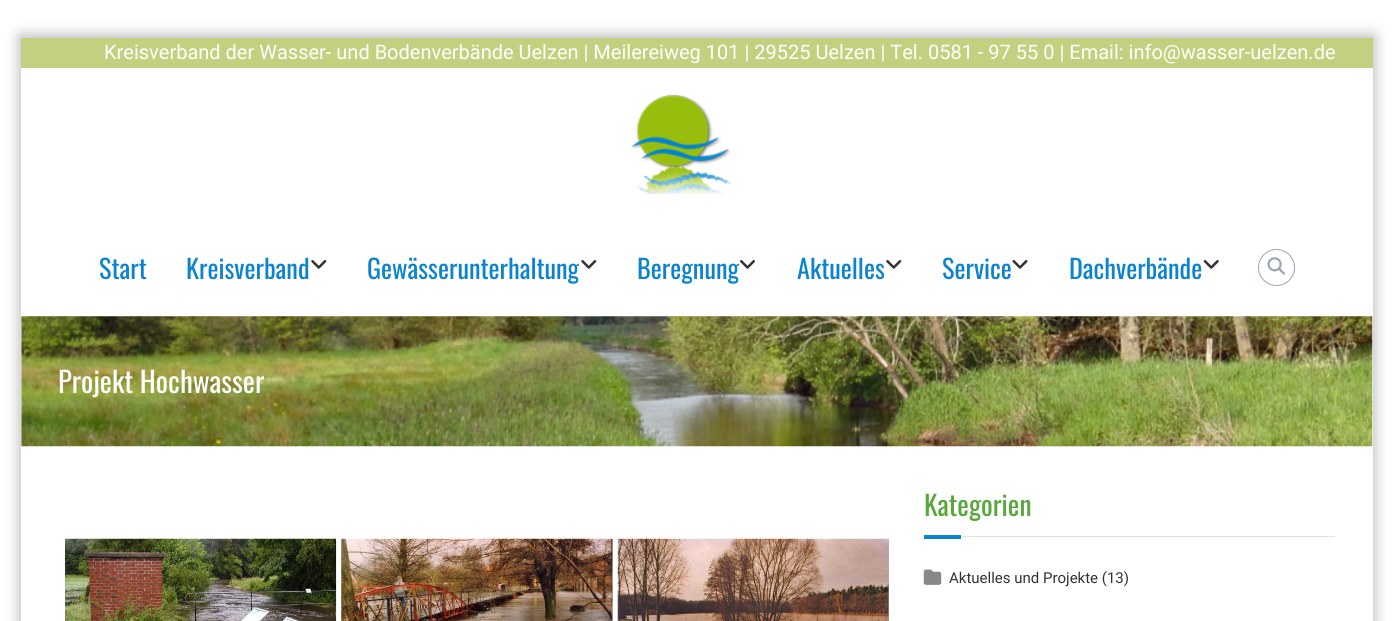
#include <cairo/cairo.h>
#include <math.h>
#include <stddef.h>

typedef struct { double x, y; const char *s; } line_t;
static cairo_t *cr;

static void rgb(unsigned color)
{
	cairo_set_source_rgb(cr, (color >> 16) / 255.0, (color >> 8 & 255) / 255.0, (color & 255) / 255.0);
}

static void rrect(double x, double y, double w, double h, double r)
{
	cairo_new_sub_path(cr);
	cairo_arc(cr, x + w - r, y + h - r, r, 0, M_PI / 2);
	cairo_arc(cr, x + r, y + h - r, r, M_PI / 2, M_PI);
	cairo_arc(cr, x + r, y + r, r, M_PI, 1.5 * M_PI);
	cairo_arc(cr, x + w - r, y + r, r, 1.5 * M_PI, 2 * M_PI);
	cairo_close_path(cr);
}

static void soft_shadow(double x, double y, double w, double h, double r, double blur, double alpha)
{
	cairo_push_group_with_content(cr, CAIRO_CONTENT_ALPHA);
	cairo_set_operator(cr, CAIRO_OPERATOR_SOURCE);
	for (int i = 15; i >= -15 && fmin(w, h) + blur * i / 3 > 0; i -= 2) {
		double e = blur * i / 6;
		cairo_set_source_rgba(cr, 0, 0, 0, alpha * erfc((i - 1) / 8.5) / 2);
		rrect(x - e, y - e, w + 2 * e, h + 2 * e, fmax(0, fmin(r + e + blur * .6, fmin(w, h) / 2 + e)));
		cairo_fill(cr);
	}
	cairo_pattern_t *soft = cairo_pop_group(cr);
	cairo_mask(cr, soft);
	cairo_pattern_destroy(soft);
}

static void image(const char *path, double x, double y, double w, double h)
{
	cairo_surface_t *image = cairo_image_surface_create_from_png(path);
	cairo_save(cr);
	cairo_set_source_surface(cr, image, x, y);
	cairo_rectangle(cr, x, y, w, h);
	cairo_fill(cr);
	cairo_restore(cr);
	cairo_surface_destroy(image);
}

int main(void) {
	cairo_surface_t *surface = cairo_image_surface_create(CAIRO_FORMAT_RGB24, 1393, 621);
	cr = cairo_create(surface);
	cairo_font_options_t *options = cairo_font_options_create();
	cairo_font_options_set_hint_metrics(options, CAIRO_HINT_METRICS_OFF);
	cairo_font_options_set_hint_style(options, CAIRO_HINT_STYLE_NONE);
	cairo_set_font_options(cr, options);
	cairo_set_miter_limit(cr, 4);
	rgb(0xffffff);
	cairo_paint(cr);
	rgb(0x000000);
	soft_shadow(20, 36, 1354, 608, 0, 7.5, 0.3);
	rgb(0xffffff);
	cairo_rectangle(cr, 21, 68, 1352, 553);
	cairo_fill(cr);
	rgb(0xc2d17f);
	cairo_rectangle(cr, 21, 38, 1352, 30);
	cairo_fill(cr);
	image("img/1.png", 631, 94, 103, 100);
	image("img/2.png", 311, 260, 16, 9);
	image("img/2.png", 581, 260, 16, 9);
	image("img/3.png", 740, 260, 15, 9);
	image("img/2.png", 886, 260, 16, 9);
	image("img/4.png", 1012, 260, 16, 9);
	image("img/5.png", 1203, 260, 16, 9);
	cairo_arc(cr, 1276.5, 267.5, 18, 0, 2 * M_PI);
	rgb(0x9ca6b2);
	cairo_set_line_width(cr, 1);
	cairo_stroke(cr);
	image("img/6.png", 1267, 257, 18, 18);
	rgb(0xfafafa);
	cairo_rectangle(cr, 21, 316, 1352, 130);
	cairo_fill(cr);
	image("img/7.png", 21, 316, 1352, 131);
	image("img/8.png", 65, 538, 272, 83);
	rgb(0xb3b3b3);
	cairo_rectangle(cr, 341, 539, 272, 82);
	cairo_fill(cr);
	image("img/9.png", 341, 538, 272, 83);
	cairo_rectangle(cr, 888, 539, 1, 82);
	cairo_fill(cr);
	image("img/10.png", 617, 538, 272, 83);
	rgb(0x0b83cf);
	cairo_rectangle(cr, 924, 535, 37, 4);
	cairo_fill(cr);
	rgb(0xe1e1e1);
	cairo_rectangle(cr, 961, 536, 374, 1);
	cairo_fill(cr);
	image("img/11.png", 923, 569, 19, 16);
	cairo_select_font_face(cr, "Roboto", CAIRO_FONT_SLANT_NORMAL, CAIRO_FONT_WEIGHT_NORMAL);
	cairo_set_font_size(cr, 20);
	rgb(0xffffff);
	cairo_move_to(cr, 104, 59);
	cairo_show_text(cr, "Kreisverband der Wasser- und Bodenverbände Uelzen | Meilereiweg 101 | 29525 Uelzen | Tel. 0581 - 97 55 0 | Email: info@wasser-uelzen.de");
	cairo_select_font_face(cr, "Oswald", CAIRO_FONT_SLANT_NORMAL, CAIRO_FONT_WEIGHT_NORMAL);
	cairo_set_font_size(cr, 26.25);
	rgb(0x0b83cf);
	{
		static const line_t items[] = {
			{99, 279, "Start"},
			{186, 279, "Kreisverband"},
			{367, 279, "Gewässerunterhaltung"},
			{637, 279, "Beregnung"},
			{797, 279, "Aktuelles"},
			{942, 279, "Service"},
			{1069, 279, "Dachverbände"},
		};
		for (size_t i = 0; i < sizeof items / sizeof *items; i++) {
			cairo_move_to(cr, items[i].x, items[i].y);
			cairo_show_text(cr, items[i].s);
		}
	}
	cairo_set_font_size(cr, 28.75);
	rgb(0xffffff);
	cairo_move_to(cr, 58, 393);
	cairo_show_text(cr, "Projekt Hochwasser");
	cairo_set_font_size(cr, 27.5);
	rgb(0x58a73a);
	cairo_move_to(cr, 924, 516);
	cairo_show_text(cr, "Kategorien");
	cairo_select_font_face(cr, "Roboto", CAIRO_FONT_SLANT_NORMAL, CAIRO_FONT_WEIGHT_NORMAL);
	cairo_set_font_size(cr, 15);
	rgb(0x333333);
	cairo_move_to(cr, 949, 583);
	cairo_show_text(cr, "Aktuelles und Projekte (13)");
	cairo_surface_write_to_png(surface, "page.png");
	cairo_font_options_destroy(options);
	cairo_destroy(cr);
	cairo_surface_destroy(surface);
	return 0;
}
